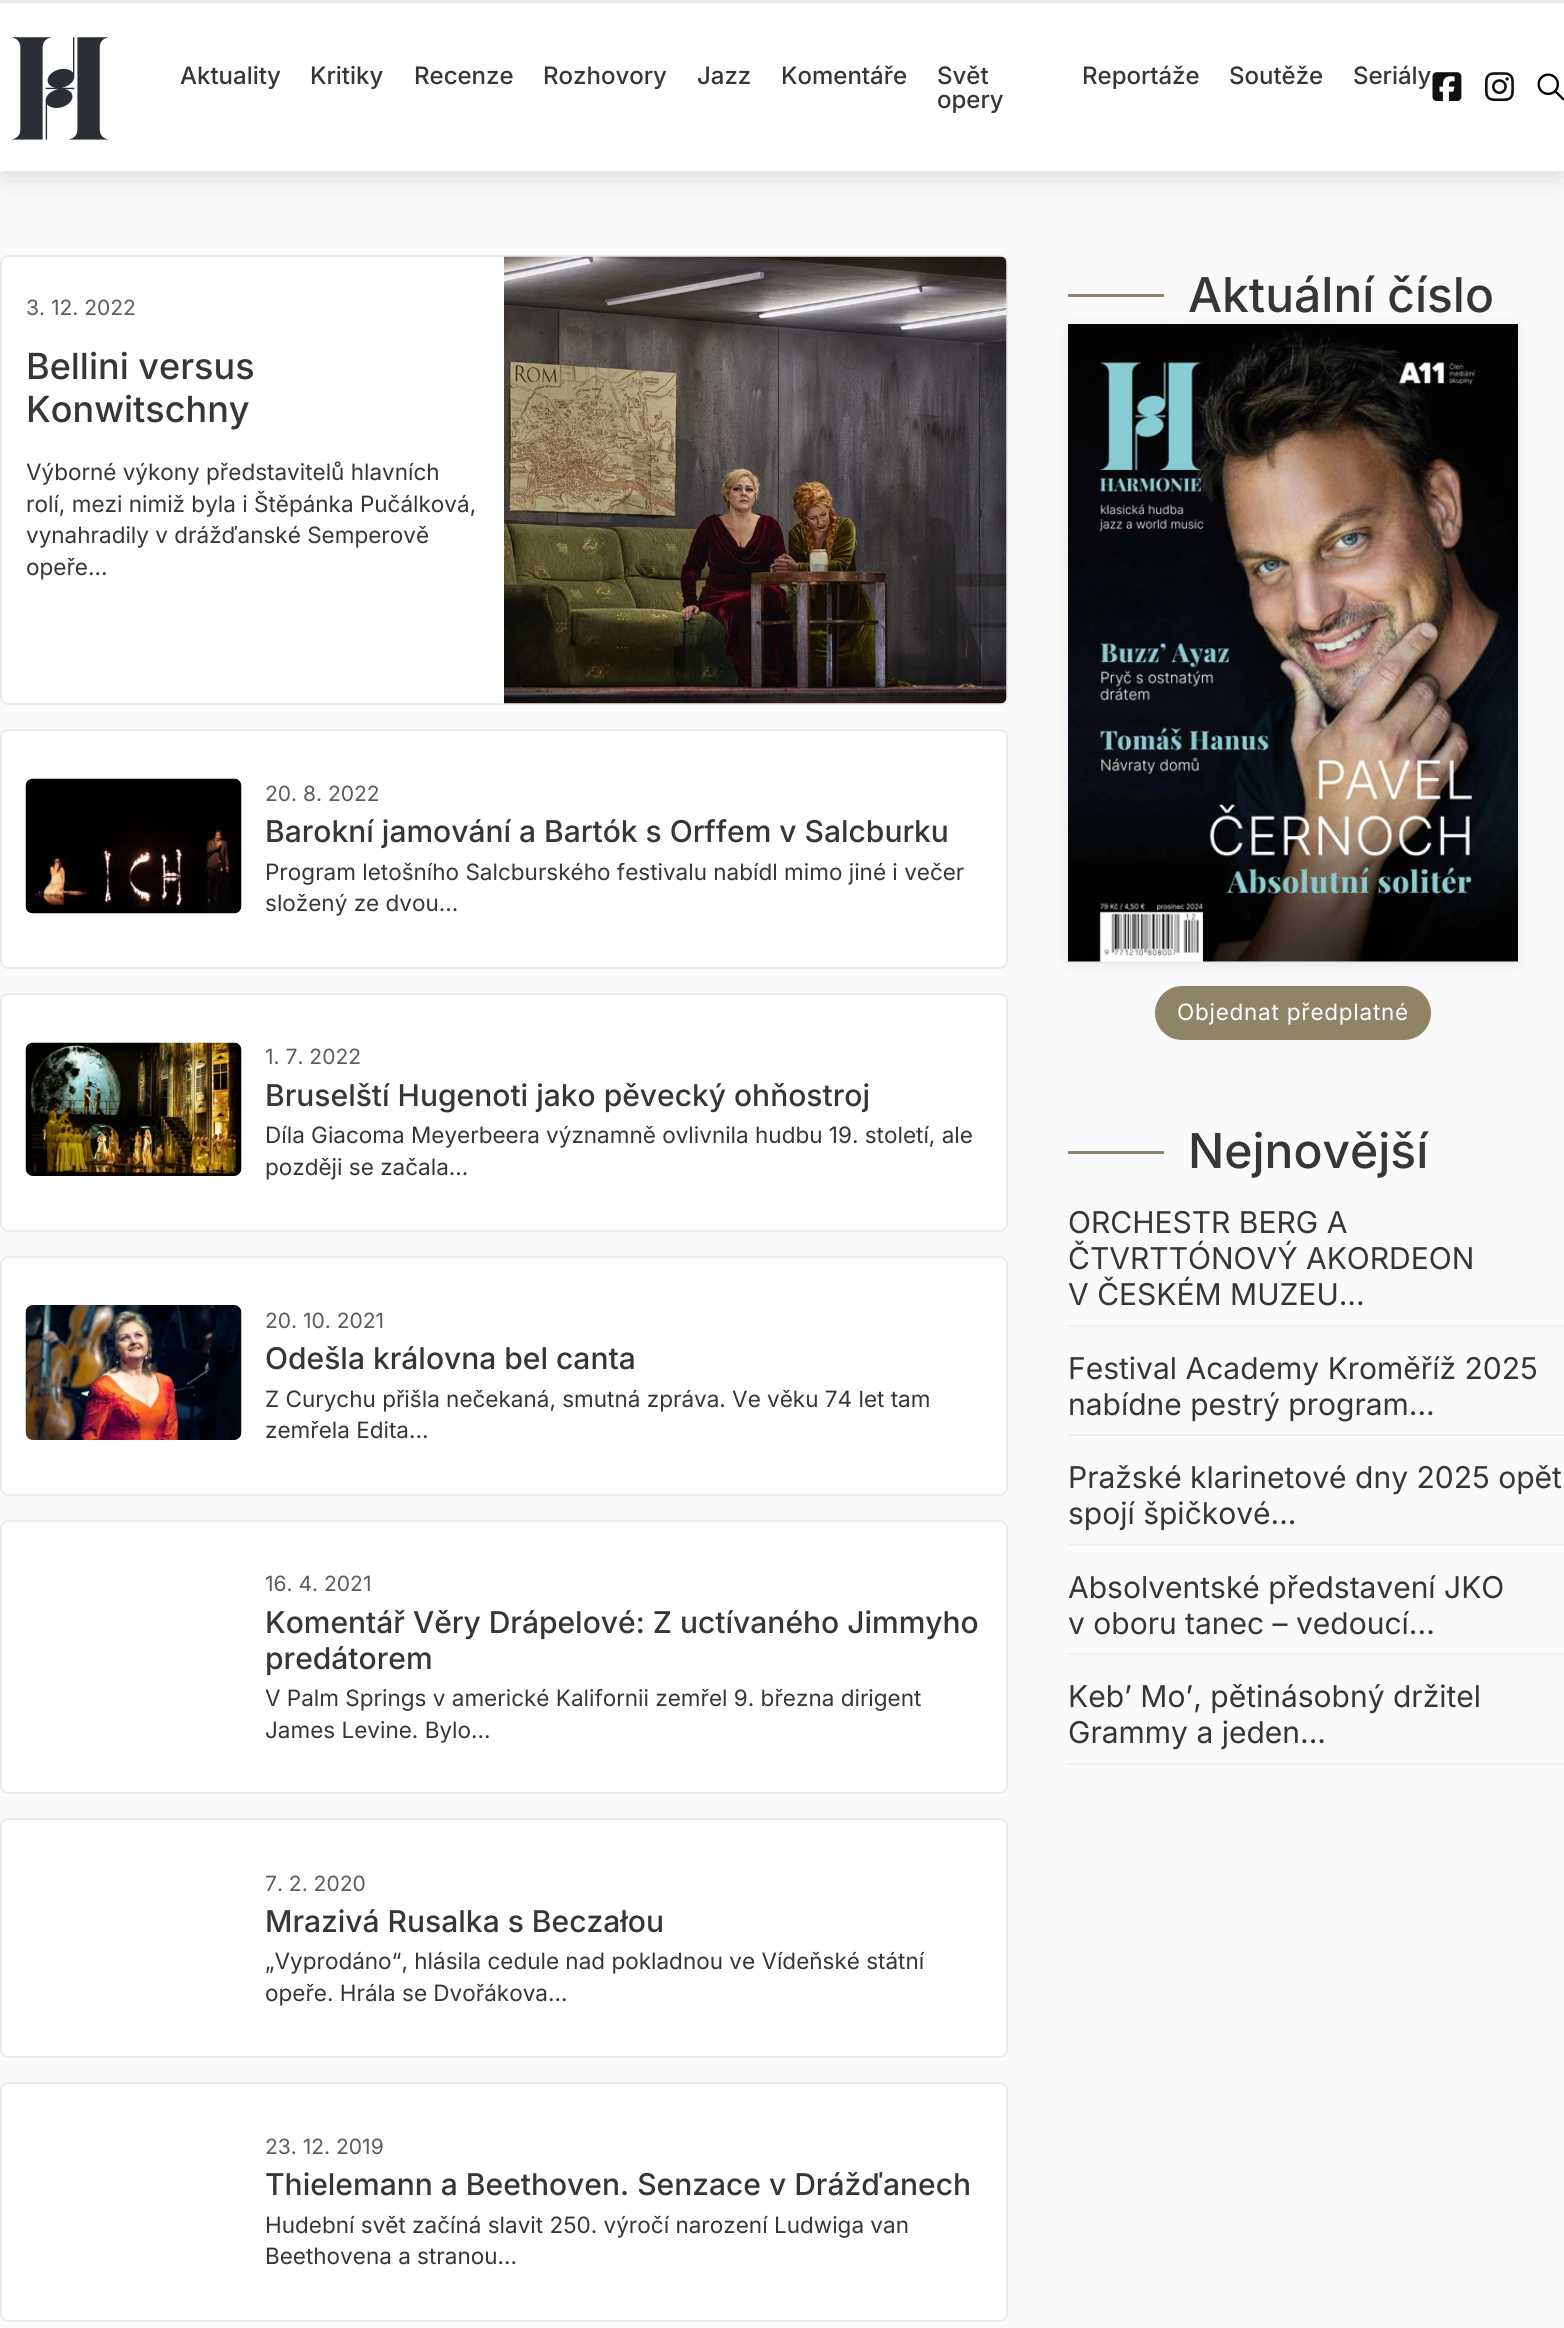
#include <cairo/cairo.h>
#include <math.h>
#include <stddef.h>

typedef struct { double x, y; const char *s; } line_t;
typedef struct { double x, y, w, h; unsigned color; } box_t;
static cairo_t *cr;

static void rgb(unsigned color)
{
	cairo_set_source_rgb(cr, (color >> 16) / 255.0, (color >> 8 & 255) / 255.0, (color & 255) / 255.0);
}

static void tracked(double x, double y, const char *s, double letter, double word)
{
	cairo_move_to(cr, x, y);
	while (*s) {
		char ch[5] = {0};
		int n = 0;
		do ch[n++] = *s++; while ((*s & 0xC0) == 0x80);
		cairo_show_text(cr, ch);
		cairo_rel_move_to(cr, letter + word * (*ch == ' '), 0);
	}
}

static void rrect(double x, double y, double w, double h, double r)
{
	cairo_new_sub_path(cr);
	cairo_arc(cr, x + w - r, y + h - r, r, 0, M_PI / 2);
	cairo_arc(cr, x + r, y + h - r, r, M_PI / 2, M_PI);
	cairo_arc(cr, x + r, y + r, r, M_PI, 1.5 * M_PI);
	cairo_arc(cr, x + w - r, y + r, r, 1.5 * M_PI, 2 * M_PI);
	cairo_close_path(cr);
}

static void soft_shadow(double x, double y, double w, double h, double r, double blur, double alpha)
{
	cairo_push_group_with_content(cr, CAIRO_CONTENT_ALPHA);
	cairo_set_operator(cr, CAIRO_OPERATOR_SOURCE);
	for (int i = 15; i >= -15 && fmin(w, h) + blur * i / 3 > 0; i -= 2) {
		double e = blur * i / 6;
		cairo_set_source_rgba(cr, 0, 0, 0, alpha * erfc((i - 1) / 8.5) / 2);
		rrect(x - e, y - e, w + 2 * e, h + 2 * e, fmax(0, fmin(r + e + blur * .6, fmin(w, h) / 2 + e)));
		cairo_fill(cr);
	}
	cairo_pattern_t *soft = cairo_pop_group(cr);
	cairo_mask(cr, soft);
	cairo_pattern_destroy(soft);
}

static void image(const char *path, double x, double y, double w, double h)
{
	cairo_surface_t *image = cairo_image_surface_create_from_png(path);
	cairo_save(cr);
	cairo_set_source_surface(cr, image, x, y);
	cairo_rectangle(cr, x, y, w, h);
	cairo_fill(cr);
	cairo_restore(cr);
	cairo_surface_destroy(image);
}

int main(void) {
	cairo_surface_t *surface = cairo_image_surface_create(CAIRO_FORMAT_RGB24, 1564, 2328);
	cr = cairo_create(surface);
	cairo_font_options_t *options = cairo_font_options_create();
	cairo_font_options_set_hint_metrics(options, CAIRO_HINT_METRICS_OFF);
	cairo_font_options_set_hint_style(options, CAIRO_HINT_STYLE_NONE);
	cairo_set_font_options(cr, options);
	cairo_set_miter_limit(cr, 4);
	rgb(0xfafafa);
	cairo_paint(cr);
	rgb(0xc7c7c7);
	soft_shadow(6, 9, 1553, 159, 0, 18, 1);
	rgb(0xffffff);
	cairo_rectangle(cr, 0, 3, 1564, 168);
	cairo_fill(cr);
	rgb(0xebebeb);
	cairo_rectangle(cr, 0, 0, 1564, 3);
	cairo_fill(cr);
	image("img/1.png", 12, 37, 97, 103);
	image("img/2.png", 1432, 72, 30, 30);
	image("img/3.png", 1485, 72, 29, 30);
	image("img/4.png", 1537, 73, 27, 28);
	rgb(0xffffff);
	rrect(1, 256, 1006, 448, 7);
	cairo_fill_preserve(cr);
	rgb(0xebebeb);
	cairo_stroke(cr);
	image("img/5.png", 504, 256, 503, 448);
	rgb(0xffffff);
	rrect(1, 730, 1006, 238, 7);
	cairo_fill_preserve(cr);
	rgb(0xebebeb);
	cairo_stroke(cr);
	image("img/6.png", 25, 778, 217, 136);
	rgb(0xffffff);
	rrect(1, 994, 1006, 237, 7);
	cairo_fill_preserve(cr);
	rgb(0xebebeb);
	cairo_stroke(cr);
	image("img/7.png", 25, 1042, 217, 134);
	rgb(0xffffff);
	rrect(1, 1257, 1006, 238, 7);
	cairo_fill_preserve(cr);
	rgb(0xebebeb);
	cairo_stroke(cr);
	image("img/8.png", 25, 1305, 217, 135);
	rgb(0xffffff);
	rrect(1, 1521, 1006, 272, 7);
	cairo_fill_preserve(cr);
	rgb(0xebebeb);
	cairo_stroke(cr);
	rgb(0xffffff);
	rrect(1, 1819, 1006, 238, 7);
	cairo_fill_preserve(cr);
	rgb(0xebebeb);
	cairo_stroke(cr);
	rgb(0xffffff);
	rrect(1, 2083, 1006, 238, 7);
	cairo_fill_preserve(cr);
	rgb(0xebebeb);
	cairo_stroke(cr);
	rgb(0x8f8468);
	cairo_rectangle(cr, 1068, 294, 96, 3);
	cairo_fill(cr);
	rgb(0xe0e0e0);
	soft_shadow(1071, 330, 444, 632, 0, 9, 1);
	image("img/9.png", 1068, 324, 450, 638);
	rgb(0x8f8468);
	rrect(1155, 986, 276, 54, 27);
	cairo_fill(cr);
	{
		static const box_t items[] = {
			{1068, 1151, 96, 3, 0x8f8468},
			{1068, 1325, 496, 2, 0xf0f0f0},
			{1068, 1434, 496, 2, 0xf0f0f0},
			{1068, 1544, 496, 2, 0xf0f0f0},
			{1068, 1653, 496, 2, 0xf0f0f0},
			{1068, 1763, 496, 2, 0xf0f0f0},
		};
		for (size_t i = 0; i < sizeof items / sizeof *items; i++) {
			rgb(items[i].color);
			cairo_rectangle(cr, items[i].x, items[i].y, items[i].w, items[i].h);
			cairo_fill(cr);
		}
	}
	cairo_select_font_face(cr, "Inter Medium", CAIRO_FONT_SLANT_NORMAL, CAIRO_FONT_WEIGHT_NORMAL);
	cairo_set_font_size(cr, 24);
	rgb(0x363636);
	{
		static const line_t items[] = {
			{180, 84, "Aktuality"},
			{310, 84, "Kritiky"},
			{414, 84, "Recenze"},
			{543, 84, "Rozhovory"},
			{697, 84, "Jazz"},
			{781, 84, "Komentáře"},
			{937, 84, "Svět"},
			{937, 108, "opery"},
			{1082, 84, "Reportáže"},
			{1229, 84, "Soutěže"},
			{1353, 84, "Seriály"},
		};
		for (size_t i = 0; i < sizeof items / sizeof *items; i++) {
			cairo_move_to(cr, items[i].x, items[i].y);
			cairo_show_text(cr, items[i].s);
		}
	}
	cairo_select_font_face(cr, "Inter", CAIRO_FONT_SLANT_NORMAL, CAIRO_FONT_WEIGHT_NORMAL);
	cairo_set_font_size(cr, 21);
	rgb(0x5c5c5c);
	cairo_move_to(cr, 26, 315);
	cairo_show_text(cr, "3. 12. 2022");
	cairo_select_font_face(cr, "Inter Medium", CAIRO_FONT_SLANT_NORMAL, CAIRO_FONT_WEIGHT_NORMAL);
	cairo_set_font_size(cr, 36);
	rgb(0x363636);
	cairo_move_to(cr, 26, 379);
	cairo_show_text(cr, "Bellini versus");
	cairo_move_to(cr, 26, 422);
	cairo_show_text(cr, "Konwitschny");
	cairo_select_font_face(cr, "Inter", CAIRO_FONT_SLANT_NORMAL, CAIRO_FONT_WEIGHT_NORMAL);
	cairo_set_font_size(cr, 22.5);
	{
		static const line_t items[] = {
			{26, 480, "Výborné výkony představitelů hlavních"},
			{26, 512, "rolí, mezi nimiž byla i Štěpánka Pučálková,"},
			{26, 543, "vynahradily v drážďanské Semperově"},
			{26, 575, "opeře..."},
		};
		for (size_t i = 0; i < sizeof items / sizeof *items; i++) {
			cairo_move_to(cr, items[i].x, items[i].y);
			cairo_show_text(cr, items[i].s);
		}
	}
	cairo_set_font_size(cr, 21);
	rgb(0x5c5c5c);
	cairo_move_to(cr, 265, 801);
	cairo_show_text(cr, "20. 8. 2022");
	cairo_select_font_face(cr, "Inter Medium", CAIRO_FONT_SLANT_NORMAL, CAIRO_FONT_WEIGHT_NORMAL);
	cairo_set_font_size(cr, 30);
	rgb(0x363636);
	cairo_move_to(cr, 265, 842);
	cairo_show_text(cr, "Barokní jamování a Bartók s Orffem v Salcburku");
	cairo_select_font_face(cr, "Inter", CAIRO_FONT_SLANT_NORMAL, CAIRO_FONT_WEIGHT_NORMAL);
	cairo_set_font_size(cr, 22.5);
	cairo_move_to(cr, 265, 880);
	cairo_show_text(cr, "Program letošního Salcburského festivalu nabídl mimo jiné i večer");
	cairo_move_to(cr, 265, 911);
	cairo_show_text(cr, "složený ze dvou...");
	cairo_set_font_size(cr, 21);
	rgb(0x5c5c5c);
	cairo_move_to(cr, 265, 1064);
	cairo_show_text(cr, "1. 7. 2022");
	cairo_select_font_face(cr, "Inter Medium", CAIRO_FONT_SLANT_NORMAL, CAIRO_FONT_WEIGHT_NORMAL);
	cairo_set_font_size(cr, 30);
	rgb(0x363636);
	cairo_move_to(cr, 265, 1106);
	cairo_show_text(cr, "Bruselští Hugenoti jako pěvecký ohňostroj");
	cairo_select_font_face(cr, "Inter", CAIRO_FONT_SLANT_NORMAL, CAIRO_FONT_WEIGHT_NORMAL);
	cairo_set_font_size(cr, 22.5);
	cairo_move_to(cr, 265, 1143);
	cairo_show_text(cr, "Díla Giacoma Meyerbeera významně ovlivnila hudbu 19. století, ale");
	cairo_move_to(cr, 265, 1175);
	cairo_show_text(cr, "později se začala...");
	cairo_set_font_size(cr, 21);
	rgb(0x5c5c5c);
	cairo_move_to(cr, 265, 1328);
	cairo_show_text(cr, "20. 10. 2021");
	cairo_select_font_face(cr, "Inter Medium", CAIRO_FONT_SLANT_NORMAL, CAIRO_FONT_WEIGHT_NORMAL);
	cairo_set_font_size(cr, 30);
	rgb(0x363636);
	cairo_move_to(cr, 265, 1369);
	cairo_show_text(cr, "Odešla královna bel canta");
	cairo_select_font_face(cr, "Inter", CAIRO_FONT_SLANT_NORMAL, CAIRO_FONT_WEIGHT_NORMAL);
	cairo_set_font_size(cr, 22.5);
	cairo_move_to(cr, 265, 1407);
	cairo_show_text(cr, "Z Curychu přišla nečekaná, smutná zpráva. Ve věku 74 let tam");
	cairo_move_to(cr, 265, 1438);
	cairo_show_text(cr, "zemřela Edita...");
	cairo_set_font_size(cr, 21);
	rgb(0x5c5c5c);
	cairo_move_to(cr, 265, 1591);
	cairo_show_text(cr, "16. 4. 2021");
	cairo_select_font_face(cr, "Inter Medium", CAIRO_FONT_SLANT_NORMAL, CAIRO_FONT_WEIGHT_NORMAL);
	cairo_set_font_size(cr, 30);
	rgb(0x363636);
	cairo_move_to(cr, 265, 1633);
	cairo_show_text(cr, "Komentář Věry Drápelové: Z uctívaného Jimmyho");
	cairo_move_to(cr, 265, 1669);
	cairo_show_text(cr, "predátorem");
	cairo_select_font_face(cr, "Inter", CAIRO_FONT_SLANT_NORMAL, CAIRO_FONT_WEIGHT_NORMAL);
	cairo_set_font_size(cr, 22.5);
	cairo_move_to(cr, 265, 1706);
	cairo_show_text(cr, "V Palm Springs v americké Kalifornii zemřel 9. března dirigent");
	cairo_move_to(cr, 265, 1738);
	cairo_show_text(cr, "James Levine. Bylo...");
	cairo_set_font_size(cr, 21);
	rgb(0x5c5c5c);
	cairo_move_to(cr, 265, 1891);
	cairo_show_text(cr, "7. 2. 2020");
	cairo_select_font_face(cr, "Inter Medium", CAIRO_FONT_SLANT_NORMAL, CAIRO_FONT_WEIGHT_NORMAL);
	cairo_set_font_size(cr, 30);
	rgb(0x363636);
	cairo_move_to(cr, 265, 1932);
	cairo_show_text(cr, "Mrazivá Rusalka s Beczałou");
	cairo_select_font_face(cr, "Inter", CAIRO_FONT_SLANT_NORMAL, CAIRO_FONT_WEIGHT_NORMAL);
	cairo_set_font_size(cr, 22.5);
	cairo_move_to(cr, 265, 1969);
	cairo_show_text(cr, "„Vyprodáno“, hlásila cedule nad pokladnou ve Vídeňské státní");
	cairo_move_to(cr, 265, 2001);
	cairo_show_text(cr, "opeře. Hrála se Dvořákova...");
	cairo_set_font_size(cr, 21);
	rgb(0x5c5c5c);
	cairo_move_to(cr, 265, 2154);
	cairo_show_text(cr, "23. 12. 2019");
	cairo_select_font_face(cr, "Inter Medium", CAIRO_FONT_SLANT_NORMAL, CAIRO_FONT_WEIGHT_NORMAL);
	cairo_set_font_size(cr, 30);
	rgb(0x363636);
	cairo_move_to(cr, 265, 2195);
	cairo_show_text(cr, "Thielemann a Beethoven. Senzace v Drážďanech");
	cairo_select_font_face(cr, "Inter", CAIRO_FONT_SLANT_NORMAL, CAIRO_FONT_WEIGHT_NORMAL);
	cairo_set_font_size(cr, 22.5);
	cairo_move_to(cr, 265, 2233);
	cairo_show_text(cr, "Hudební svět začíná slavit 250. výročí narození Ludwiga van");
	cairo_move_to(cr, 265, 2264);
	cairo_show_text(cr, "Beethovena a stranou...");
	cairo_select_font_face(cr, "Inter Medium", CAIRO_FONT_SLANT_NORMAL, CAIRO_FONT_WEIGHT_NORMAL);
	cairo_set_font_size(cr, 48);
	cairo_move_to(cr, 1188, 312);
	cairo_show_text(cr, "Aktuální číslo");
	cairo_select_font_face(cr, "Inter", CAIRO_FONT_SLANT_NORMAL, CAIRO_FONT_WEIGHT_NORMAL);
	cairo_set_font_size(cr, 22.5);
	rgb(0xffffff);
	tracked(1177, 1020, "Objednat předplatné", 0.75, 0);
	cairo_select_font_face(cr, "Inter Medium", CAIRO_FONT_SLANT_NORMAL, CAIRO_FONT_WEIGHT_NORMAL);
	cairo_set_font_size(cr, 48);
	rgb(0x363636);
	cairo_move_to(cr, 1188, 1168);
	cairo_show_text(cr, "Nejnovější");
	cairo_select_font_face(cr, "Inter", CAIRO_FONT_SLANT_NORMAL, CAIRO_FONT_WEIGHT_NORMAL);
	cairo_set_font_size(cr, 30);
	{
		static const line_t items[] = {
			{1068, 1233, "ORCHESTR BERG A"},
			{1068, 1269, "ČTVRTTÓNOVÝ AKORDEON"},
			{1068, 1305, "V ČESKÉM MUZEU..."},
			{1068, 1379, "Festival Academy Kroměříž 2025"},
			{1068, 1415, "nabídne pestrý program..."},
			{1068, 1488, "Pražské klarinetové dny 2025 opět"},
			{1068, 1524, "spojí špičkové..."},
			{1068, 1598, "Absolventské představení JKO"},
			{1068, 1634, "v oboru tanec – vedoucí..."},
			{1068, 1707, "Keb’ Mo’, pětinásobný držitel"},
			{1068, 1743, "Grammy a jeden..."},
		};
		for (size_t i = 0; i < sizeof items / sizeof *items; i++) {
			cairo_move_to(cr, items[i].x, items[i].y);
			cairo_show_text(cr, items[i].s);
		}
	}
	cairo_surface_write_to_png(surface, "page.png");
	cairo_font_options_destroy(options);
	cairo_destroy(cr);
	cairo_surface_destroy(surface);
	return 0;
}
